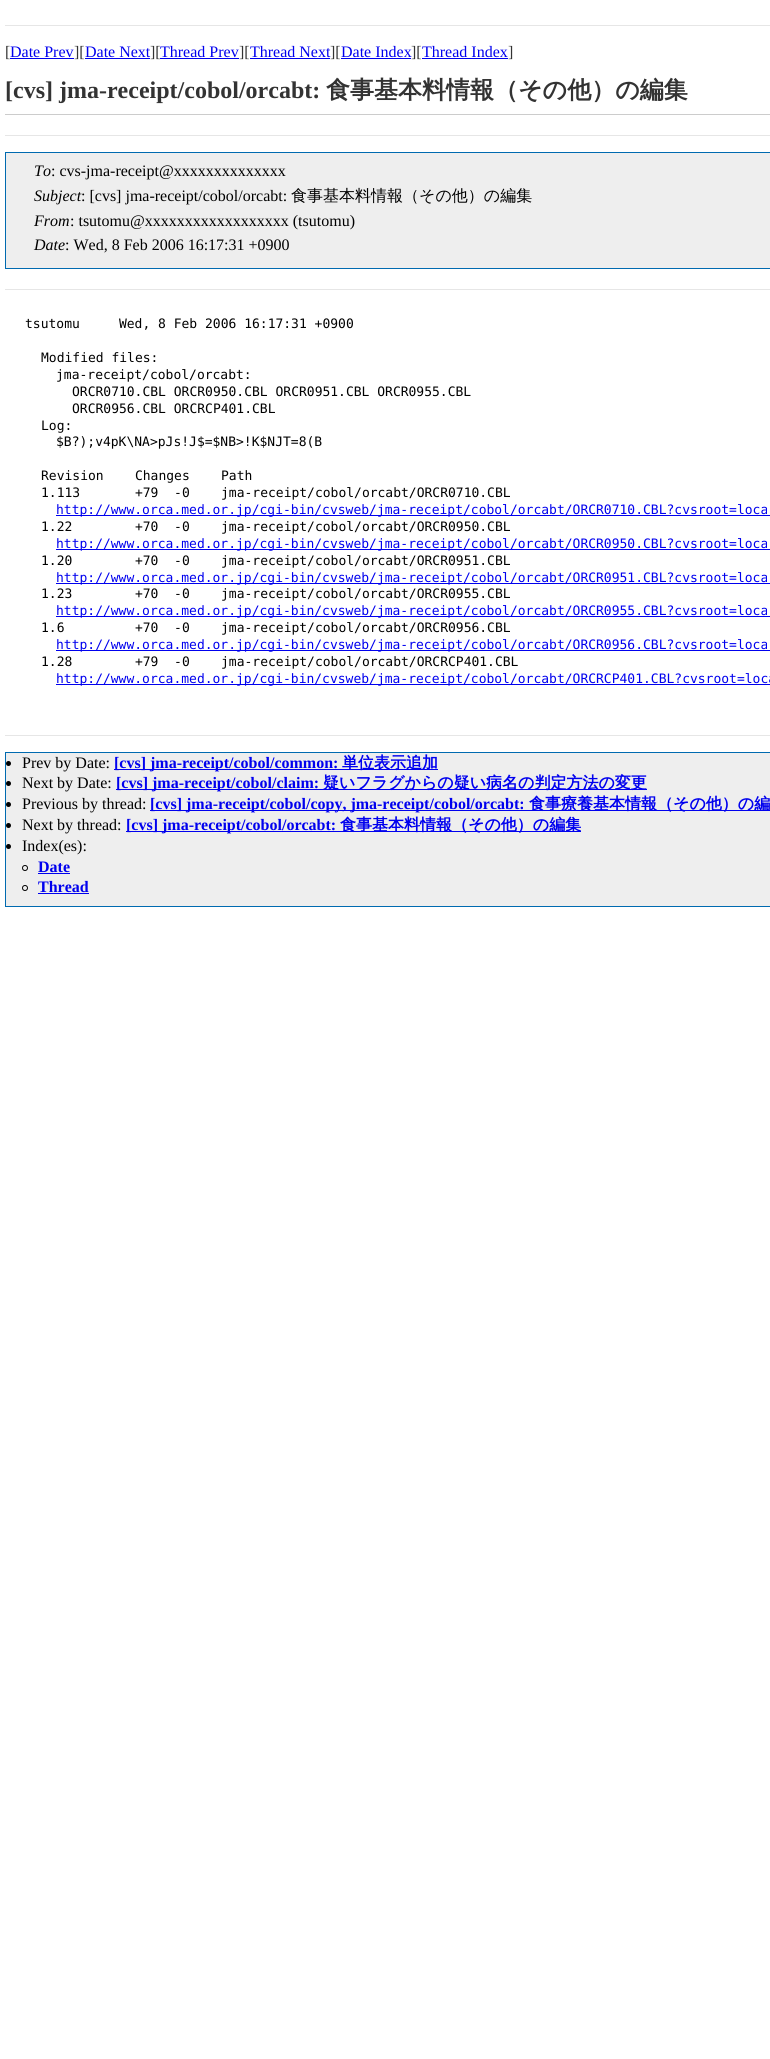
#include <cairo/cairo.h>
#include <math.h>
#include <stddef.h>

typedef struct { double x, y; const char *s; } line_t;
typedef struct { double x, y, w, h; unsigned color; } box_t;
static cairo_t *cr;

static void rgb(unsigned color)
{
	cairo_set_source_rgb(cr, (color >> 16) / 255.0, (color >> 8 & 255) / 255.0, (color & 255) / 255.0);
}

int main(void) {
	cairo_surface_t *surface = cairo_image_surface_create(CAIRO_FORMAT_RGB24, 770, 2059);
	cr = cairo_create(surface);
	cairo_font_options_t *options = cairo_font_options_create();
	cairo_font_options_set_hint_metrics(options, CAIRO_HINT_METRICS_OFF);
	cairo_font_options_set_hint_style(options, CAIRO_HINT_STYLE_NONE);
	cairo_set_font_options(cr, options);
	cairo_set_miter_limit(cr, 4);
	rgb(0xffffff);
	cairo_paint(cr);
	{
		static const box_t items[] = {
			{5, 25, 765, 1, 0xe6e6e6},
			{10, 58, 64, 1, 0x0000ee},
			{85, 58, 65, 1, 0x0000ee},
			{160, 58, 79, 1, 0x0000ee},
			{250, 58, 80, 1, 0x0000ee},
			{341, 58, 70, 1, 0x0000ee},
			{422, 58, 86, 1, 0x0000ee},
			{5, 114, 765, 1, 0xcccccc},
			{5, 135, 765, 1, 0xe6e6e6},
		};
		for (size_t i = 0; i < sizeof items / sizeof *items; i++) {
			rgb(items[i].color);
			cairo_rectangle(cr, items[i].x, items[i].y, items[i].w, items[i].h);
			cairo_fill(cr);
		}
	}
	rgb(0xeeeeee);
	cairo_rectangle(cr, 5.5, 152.5, 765, 116);
	cairo_fill_preserve(cr);
	rgb(0x006ab0);
	cairo_set_line_width(cr, 1);
	cairo_stroke(cr);
	{
		static const box_t items[] = {
			{5, 289, 765, 1, 0xe6e6e6},
			{56, 515, 714, 1, 0x0000ee},
			{56, 549, 714, 1, 0x0000ee},
			{56, 583, 714, 1, 0x0000ee},
			{56, 616, 714, 1, 0x0000ee},
			{56, 650, 714, 1, 0x0000ee},
			{56, 684, 714, 1, 0x0000ee},
			{5, 735, 765, 1, 0xe6e6e6},
		};
		for (size_t i = 0; i < sizeof items / sizeof *items; i++) {
			rgb(items[i].color);
			cairo_rectangle(cr, items[i].x, items[i].y, items[i].w, items[i].h);
			cairo_fill(cr);
		}
	}
	rgb(0xeeeeee);
	cairo_rectangle(cr, 5.5, 752.5, 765, 154);
	cairo_fill_preserve(cr);
	rgb(0x006ab0);
	cairo_stroke(cr);
	rgb(0x000000);
	cairo_arc(cr, 8.5, 763.5, 2.5, 0, 2 * M_PI);
	cairo_fill(cr);
	rgb(0x0000ee);
	cairo_rectangle(cr, 114, 769, 324, 1);
	cairo_fill(cr);
	rgb(0x000000);
	cairo_arc(cr, 8.5, 783.5, 2.5, 0, 2 * M_PI);
	cairo_fill(cr);
	rgb(0x0000ee);
	cairo_rectangle(cr, 116, 789, 531, 1);
	cairo_fill(cr);
	rgb(0x000000);
	cairo_arc(cr, 8.5, 804.5, 2.5, 0, 2 * M_PI);
	cairo_fill(cr);
	rgb(0x0000ee);
	cairo_rectangle(cr, 150, 810, 620, 1);
	cairo_fill(cr);
	rgb(0x000000);
	cairo_arc(cr, 8.5, 825.5, 2.5, 0, 2 * M_PI);
	cairo_fill(cr);
	rgb(0x0000ee);
	cairo_rectangle(cr, 126, 831, 455, 1);
	cairo_fill(cr);
	rgb(0x000000);
	cairo_arc(cr, 8.5, 846.5, 2.5, 0, 2 * M_PI);
	cairo_fill(cr);
	cairo_arc(cr, 25, 868, 2.5, 0, 2 * M_PI);
	cairo_stroke(cr);
	rgb(0x0000ee);
	cairo_rectangle(cr, 38, 873, 32, 1);
	cairo_fill(cr);
	cairo_arc(cr, 25, 888, 2.5, 0, 2 * M_PI);
	rgb(0x000000);
	cairo_stroke(cr);
	rgb(0x0000ee);
	cairo_rectangle(cr, 38, 893, 51, 1);
	cairo_fill(cr);
	cairo_select_font_face(cr, "Liberation Serif", CAIRO_FONT_SLANT_NORMAL, CAIRO_FONT_WEIGHT_NORMAL);
	cairo_set_font_size(cr, 16);
	rgb(0x333333);
	cairo_move_to(cr, 5, 57);
	cairo_show_text(cr, "[");
	rgb(0x0000ee);
	cairo_move_to(cr, 10, 57);
	cairo_show_text(cr, "Date Prev");
	rgb(0x333333);
	cairo_move_to(cr, 74, 57);
	cairo_show_text(cr, "][");
	rgb(0x0000ee);
	cairo_move_to(cr, 85, 57);
	cairo_show_text(cr, "Date Next");
	rgb(0x333333);
	cairo_move_to(cr, 150, 57);
	cairo_show_text(cr, "][");
	rgb(0x0000ee);
	cairo_move_to(cr, 160, 57);
	cairo_show_text(cr, "Thread Prev");
	rgb(0x333333);
	cairo_move_to(cr, 239, 57);
	cairo_show_text(cr, "][");
	rgb(0x0000ee);
	cairo_move_to(cr, 250, 57);
	cairo_show_text(cr, "Thread Next");
	rgb(0x333333);
	cairo_move_to(cr, 330, 57);
	cairo_show_text(cr, "][");
	rgb(0x0000ee);
	cairo_move_to(cr, 341, 57);
	cairo_show_text(cr, "Date Index");
	rgb(0x333333);
	cairo_move_to(cr, 411, 57);
	cairo_show_text(cr, "][");
	rgb(0x0000ee);
	cairo_move_to(cr, 422, 57);
	cairo_show_text(cr, "Thread Index");
	rgb(0x333333);
	cairo_move_to(cr, 508, 57);
	cairo_show_text(cr, "]");
	cairo_select_font_face(cr, "Liberation Serif", CAIRO_FONT_SLANT_NORMAL, CAIRO_FONT_WEIGHT_BOLD);
	cairo_set_font_size(cr, 24);
	cairo_move_to(cr, 5, 98);
	cairo_show_text(cr, "[cvs] jma-receipt/cobol/orcabt:");
	cairo_select_font_face(cr, "WenQuanYi Zen Hei", CAIRO_FONT_SLANT_NORMAL, CAIRO_FONT_WEIGHT_BOLD);
	cairo_move_to(cr, 326, 98);
	cairo_show_text(cr, "食事基本料情報（その他）の編集");
	cairo_select_font_face(cr, "Liberation Serif", CAIRO_FONT_SLANT_ITALIC, CAIRO_FONT_WEIGHT_NORMAL);
	cairo_set_font_size(cr, 16);
	rgb(0x000000);
	cairo_move_to(cr, 34, 176);
	cairo_show_text(cr, "To");
	cairo_select_font_face(cr, "Liberation Serif", CAIRO_FONT_SLANT_NORMAL, CAIRO_FONT_WEIGHT_NORMAL);
	cairo_move_to(cr, 51, 176);
	cairo_show_text(cr, ": cvs-jma-receipt@xxxxxxxxxxxxxx");
	cairo_select_font_face(cr, "Liberation Serif", CAIRO_FONT_SLANT_ITALIC, CAIRO_FONT_WEIGHT_NORMAL);
	cairo_move_to(cr, 34, 201);
	cairo_show_text(cr, "Subject");
	cairo_select_font_face(cr, "Liberation Serif", CAIRO_FONT_SLANT_NORMAL, CAIRO_FONT_WEIGHT_NORMAL);
	cairo_move_to(cr, 81, 201);
	cairo_show_text(cr, ": [cvs] jma-receipt/cobol/orcabt:");
	cairo_select_font_face(cr, "WenQuanYi Zen Hei Medium", CAIRO_FONT_SLANT_NORMAL, CAIRO_FONT_WEIGHT_NORMAL);
	cairo_move_to(cr, 291, 201);
	cairo_show_text(cr, "食事基本料情報（その他）の編集");
	cairo_select_font_face(cr, "Liberation Serif", CAIRO_FONT_SLANT_ITALIC, CAIRO_FONT_WEIGHT_NORMAL);
	cairo_move_to(cr, 34, 226);
	cairo_show_text(cr, "From");
	cairo_select_font_face(cr, "Liberation Serif", CAIRO_FONT_SLANT_NORMAL, CAIRO_FONT_WEIGHT_NORMAL);
	cairo_move_to(cr, 70, 226);
	cairo_show_text(cr, ": tsutomu@xxxxxxxxxxxxxxxxxx (tsutomu)");
	cairo_select_font_face(cr, "Liberation Serif", CAIRO_FONT_SLANT_ITALIC, CAIRO_FONT_WEIGHT_NORMAL);
	cairo_move_to(cr, 34, 250);
	cairo_show_text(cr, "Date");
	cairo_select_font_face(cr, "Liberation Serif", CAIRO_FONT_SLANT_NORMAL, CAIRO_FONT_WEIGHT_NORMAL);
	cairo_move_to(cr, 65, 250);
	cairo_show_text(cr, ": Wed, 8 Feb 2006 16:17:31 +0900");
	cairo_select_font_face(cr, "DejaVu Sans Mono", CAIRO_FONT_SLANT_NORMAL, CAIRO_FONT_WEIGHT_NORMAL);
	cairo_set_font_size(cr, 13);
	{
		static const line_t items[] = {
			{25, 328, "tsutomu     Wed, 8 Feb 2006 16:17:31 +0900"},
			{41, 362, "Modified files:"},
			{56, 379, "jma-receipt/cobol/orcabt:"},
			{72, 396, "ORCR0710.CBL ORCR0950.CBL ORCR0951.CBL ORCR0955.CBL"},
			{72, 413, "ORCR0956.CBL ORCRCP401.CBL"},
			{41, 430, "Log:"},
			{56, 446, "$B?);v4pK\\NA>pJs!J$=$NB>!K$NJT=8(B"},
			{41, 480, "Revision    Changes    Path"},
			{41, 497, "1.113       +79  -0    jma-receipt/cobol/orcabt/ORCR0710.CBL"},
		};
		for (size_t i = 0; i < sizeof items / sizeof *items; i++) {
			cairo_move_to(cr, items[i].x, items[i].y);
			cairo_show_text(cr, items[i].s);
		}
	}
	rgb(0x0000ee);
	cairo_move_to(cr, 56, 514);
	cairo_show_text(cr, "http://www.orca.med.or.jp/cgi-bin/cvsweb/jma-receipt/cobol/orcabt/ORCR0710.CBL?cvsroot=loca");
	rgb(0x000000);
	cairo_move_to(cr, 41, 531);
	cairo_show_text(cr, "1.22        +70  -0    jma-receipt/cobol/orcabt/ORCR0950.CBL");
	rgb(0x0000ee);
	cairo_move_to(cr, 56, 548);
	cairo_show_text(cr, "http://www.orca.med.or.jp/cgi-bin/cvsweb/jma-receipt/cobol/orcabt/ORCR0950.CBL?cvsroot=loca");
	rgb(0x000000);
	cairo_move_to(cr, 41, 565);
	cairo_show_text(cr, "1.20        +70  -0    jma-receipt/cobol/orcabt/ORCR0951.CBL");
	rgb(0x0000ee);
	cairo_move_to(cr, 56, 582);
	cairo_show_text(cr, "http://www.orca.med.or.jp/cgi-bin/cvsweb/jma-receipt/cobol/orcabt/ORCR0951.CBL?cvsroot=loca");
	rgb(0x000000);
	cairo_move_to(cr, 41, 598);
	cairo_show_text(cr, "1.23        +70  -0    jma-receipt/cobol/orcabt/ORCR0955.CBL");
	rgb(0x0000ee);
	cairo_move_to(cr, 56, 615);
	cairo_show_text(cr, "http://www.orca.med.or.jp/cgi-bin/cvsweb/jma-receipt/cobol/orcabt/ORCR0955.CBL?cvsroot=loca");
	rgb(0x000000);
	cairo_move_to(cr, 41, 632);
	cairo_show_text(cr, "1.6         +70  -0    jma-receipt/cobol/orcabt/ORCR0956.CBL");
	rgb(0x0000ee);
	cairo_move_to(cr, 56, 649);
	cairo_show_text(cr, "http://www.orca.med.or.jp/cgi-bin/cvsweb/jma-receipt/cobol/orcabt/ORCR0956.CBL?cvsroot=loca");
	rgb(0x000000);
	cairo_move_to(cr, 41, 666);
	cairo_show_text(cr, "1.28        +79  -0    jma-receipt/cobol/orcabt/ORCRCP401.CBL");
	rgb(0x0000ee);
	cairo_move_to(cr, 56, 683);
	cairo_show_text(cr, "http://www.orca.med.or.jp/cgi-bin/cvsweb/jma-receipt/cobol/orcabt/ORCRCP401.CBL?cvsroot=loca");
	cairo_select_font_face(cr, "Liberation Serif", CAIRO_FONT_SLANT_NORMAL, CAIRO_FONT_WEIGHT_NORMAL);
	cairo_set_font_size(cr, 16);
	rgb(0x000000);
	cairo_move_to(cr, 22, 768);
	cairo_show_text(cr, "Prev by Date:");
	cairo_select_font_face(cr, "Liberation Serif", CAIRO_FONT_SLANT_NORMAL, CAIRO_FONT_WEIGHT_BOLD);
	rgb(0x0000ee);
	cairo_move_to(cr, 114, 768);
	cairo_show_text(cr, "[cvs] jma-receipt/cobol/common:");
	cairo_select_font_face(cr, "WenQuanYi Zen Hei", CAIRO_FONT_SLANT_NORMAL, CAIRO_FONT_WEIGHT_BOLD);
	cairo_move_to(cr, 342, 768);
	cairo_show_text(cr, "単位表示追加");
	cairo_select_font_face(cr, "Liberation Serif", CAIRO_FONT_SLANT_NORMAL, CAIRO_FONT_WEIGHT_NORMAL);
	rgb(0x000000);
	cairo_move_to(cr, 22, 788);
	cairo_show_text(cr, "Next by Date:");
	cairo_select_font_face(cr, "Liberation Serif", CAIRO_FONT_SLANT_NORMAL, CAIRO_FONT_WEIGHT_BOLD);
	rgb(0x0000ee);
	cairo_move_to(cr, 116, 788);
	cairo_show_text(cr, "[cvs] jma-receipt/cobol/claim:");
	cairo_select_font_face(cr, "WenQuanYi Zen Hei", CAIRO_FONT_SLANT_NORMAL, CAIRO_FONT_WEIGHT_BOLD);
	cairo_move_to(cr, 323, 788);
	cairo_show_text(cr, "疑いフラグからの疑い病名の判定方法の変更");
	cairo_select_font_face(cr, "Liberation Serif", CAIRO_FONT_SLANT_NORMAL, CAIRO_FONT_WEIGHT_NORMAL);
	rgb(0x000000);
	cairo_move_to(cr, 22, 809);
	cairo_show_text(cr, "Previous by thread:");
	cairo_select_font_face(cr, "Liberation Serif", CAIRO_FONT_SLANT_NORMAL, CAIRO_FONT_WEIGHT_BOLD);
	rgb(0x0000ee);
	cairo_move_to(cr, 150, 809);
	cairo_show_text(cr, "[cvs] jma-receipt/cobol/copy, jma-receipt/cobol/orcabt:");
	cairo_select_font_face(cr, "WenQuanYi Zen Hei", CAIRO_FONT_SLANT_NORMAL, CAIRO_FONT_WEIGHT_BOLD);
	cairo_move_to(cr, 529, 809);
	cairo_show_text(cr, "食事療養基本情報（その他）の編");
	cairo_select_font_face(cr, "Liberation Serif", CAIRO_FONT_SLANT_NORMAL, CAIRO_FONT_WEIGHT_NORMAL);
	rgb(0x000000);
	cairo_move_to(cr, 22, 830);
	cairo_show_text(cr, "Next by thread:");
	cairo_select_font_face(cr, "Liberation Serif", CAIRO_FONT_SLANT_NORMAL, CAIRO_FONT_WEIGHT_BOLD);
	rgb(0x0000ee);
	cairo_move_to(cr, 126, 830);
	cairo_show_text(cr, "[cvs] jma-receipt/cobol/orcabt:");
	cairo_select_font_face(cr, "WenQuanYi Zen Hei", CAIRO_FONT_SLANT_NORMAL, CAIRO_FONT_WEIGHT_BOLD);
	cairo_move_to(cr, 340, 830);
	cairo_show_text(cr, "食事基本料情報（その他）の編集");
	cairo_select_font_face(cr, "Liberation Serif", CAIRO_FONT_SLANT_NORMAL, CAIRO_FONT_WEIGHT_NORMAL);
	rgb(0x000000);
	cairo_move_to(cr, 22, 851);
	cairo_show_text(cr, "Index(es):");
	cairo_select_font_face(cr, "Liberation Serif", CAIRO_FONT_SLANT_NORMAL, CAIRO_FONT_WEIGHT_BOLD);
	rgb(0x0000ee);
	cairo_move_to(cr, 38, 872);
	cairo_show_text(cr, "Date");
	cairo_move_to(cr, 38, 892);
	cairo_show_text(cr, "Thread");
	cairo_surface_write_to_png(surface, "page.png");
	cairo_font_options_destroy(options);
	cairo_destroy(cr);
	cairo_surface_destroy(surface);
	return 0;
}
